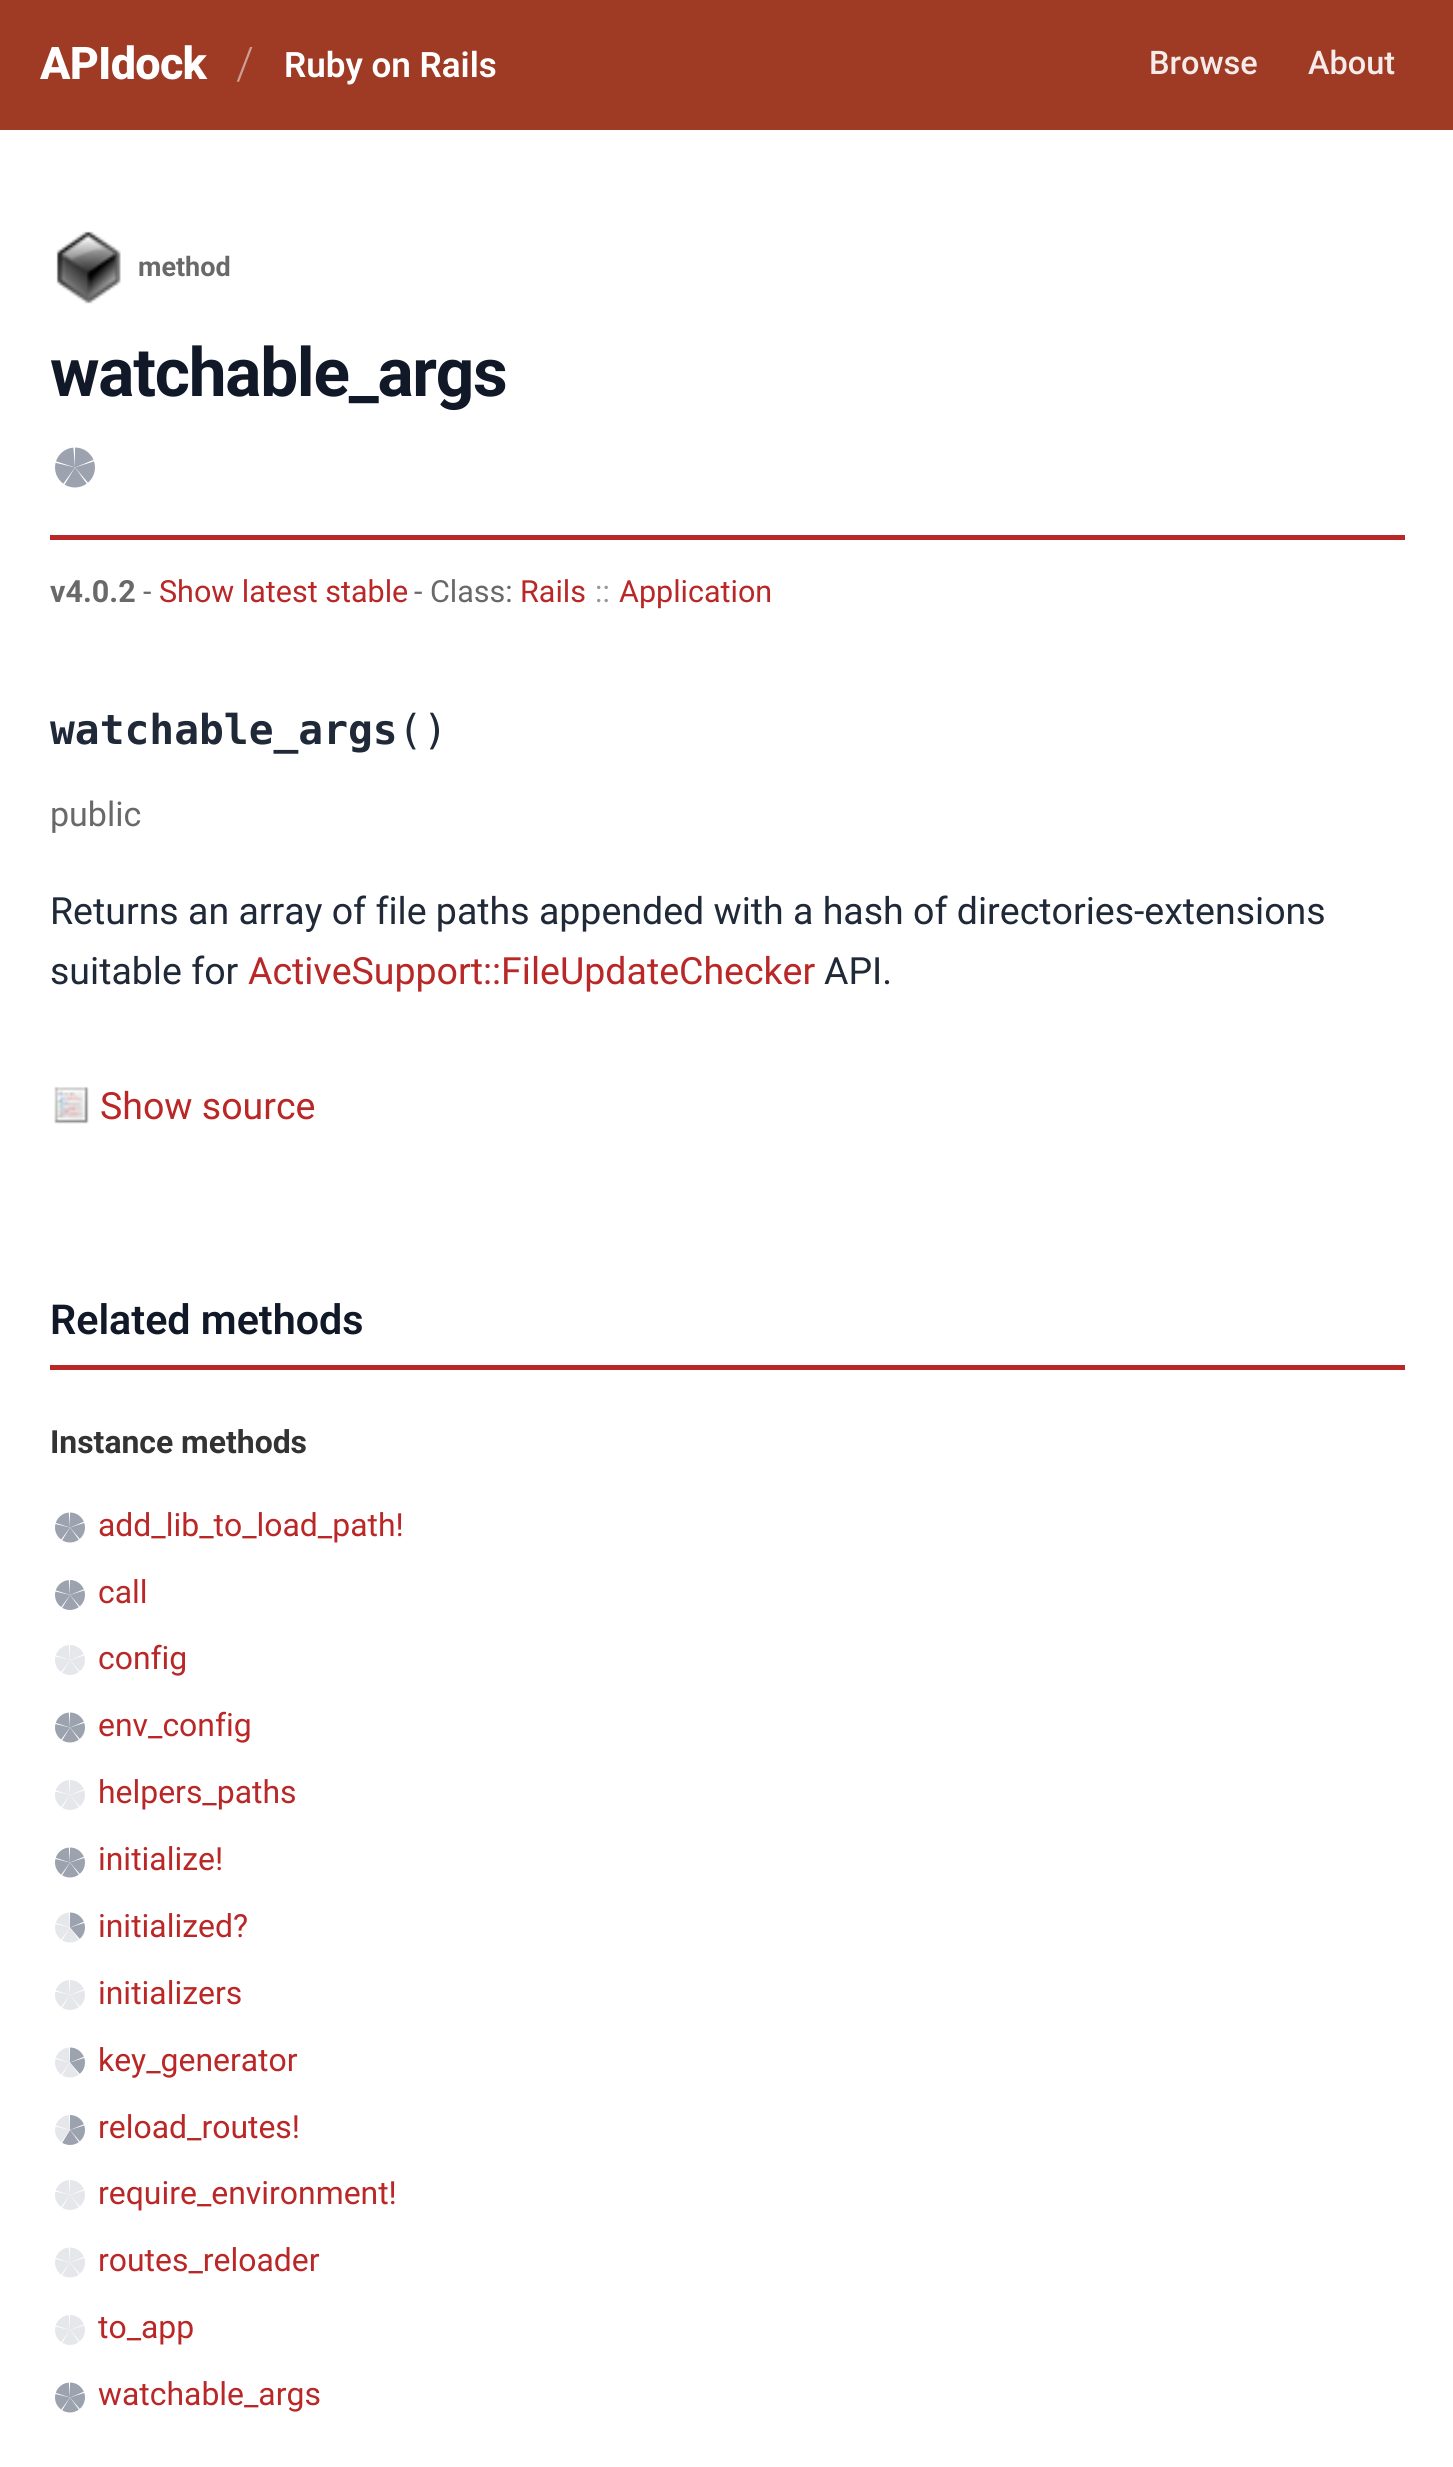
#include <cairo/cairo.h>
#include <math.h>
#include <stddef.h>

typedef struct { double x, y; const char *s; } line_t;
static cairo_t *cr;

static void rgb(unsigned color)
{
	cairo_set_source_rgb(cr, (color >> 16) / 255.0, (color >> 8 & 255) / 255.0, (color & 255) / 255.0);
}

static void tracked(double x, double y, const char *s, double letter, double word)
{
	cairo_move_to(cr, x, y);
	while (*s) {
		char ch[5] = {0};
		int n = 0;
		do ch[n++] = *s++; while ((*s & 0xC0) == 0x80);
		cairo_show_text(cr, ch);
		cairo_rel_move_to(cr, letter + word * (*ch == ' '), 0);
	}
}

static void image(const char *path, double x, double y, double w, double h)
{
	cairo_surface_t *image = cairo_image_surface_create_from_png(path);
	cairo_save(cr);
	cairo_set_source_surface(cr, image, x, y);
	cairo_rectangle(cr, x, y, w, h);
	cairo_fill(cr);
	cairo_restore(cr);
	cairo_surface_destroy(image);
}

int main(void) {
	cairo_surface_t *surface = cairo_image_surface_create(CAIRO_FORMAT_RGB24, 1453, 2467);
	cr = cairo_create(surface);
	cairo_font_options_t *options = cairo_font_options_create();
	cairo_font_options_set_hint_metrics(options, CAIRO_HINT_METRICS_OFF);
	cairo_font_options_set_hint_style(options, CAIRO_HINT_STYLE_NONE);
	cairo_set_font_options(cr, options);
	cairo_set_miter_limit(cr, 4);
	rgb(0xffffff);
	cairo_paint(cr);
	rgb(0x9f3b25);
	cairo_rectangle(cr, 0, 0, 1453, 130);
	cairo_fill(cr);
	rgb(0xba2727);
	cairo_rectangle(cr, 50, 535, 1355, 5);
	cairo_fill(cr);
	image("img/1.png", 56, 231, 65, 73);
	image("img/2.png", 55, 447, 40, 41);
	image("img/3.png", 54, 1086, 35, 38);
	cairo_rectangle(cr, 50, 1365, 1355, 5);
	cairo_fill(cr);
	image("img/4.png", 55, 1512, 30, 31);
	image("img/5.png", 55, 1580, 30, 30);
	image("img/6.png", 55, 1645, 30, 30);
	image("img/4.png", 55, 1712, 30, 31);
	image("img/6.png", 55, 1780, 30, 30);
	image("img/4.png", 55, 1847, 30, 31);
	image("img/7.png", 55, 1912, 30, 31);
	image("img/6.png", 55, 1980, 30, 30);
	image("img/7.png", 55, 2047, 30, 31);
	image("img/8.png", 55, 2115, 30, 30);
	image("img/6.png", 55, 2180, 30, 30);
	image("img/9.png", 55, 2247, 30, 31);
	image("img/6.png", 55, 2315, 30, 30);
	image("img/4.png", 55, 2382, 30, 31);
	cairo_select_font_face(cr, "Roboto ExtraBold", CAIRO_FONT_SLANT_NORMAL, CAIRO_FONT_WEIGHT_NORMAL);
	cairo_set_font_size(cr, 45);
	rgb(0xffffff);
	tracked(40, 79, "APIdock", -0.75, 0);
	cairo_select_font_face(cr, "Roboto Light", CAIRO_FONT_SLANT_NORMAL, CAIRO_FONT_WEIGHT_NORMAL);
	rgb(0xcf9d92);
	cairo_move_to(cr, 236, 79);
	cairo_show_text(cr, "/");
	cairo_select_font_face(cr, "Roboto SemiBold", CAIRO_FONT_SLANT_NORMAL, CAIRO_FONT_WEIGHT_NORMAL);
	cairo_set_font_size(cr, 35);
	rgb(0xffffff);
	cairo_move_to(cr, 284, 77);
	cairo_show_text(cr, "Ruby on Rails");
	cairo_select_font_face(cr, "Roboto Medium", CAIRO_FONT_SLANT_NORMAL, CAIRO_FONT_WEIGHT_NORMAL);
	cairo_set_font_size(cr, 32.5);
	rgb(0xf5ebe9);
	cairo_move_to(cr, 1149, 74);
	cairo_show_text(cr, "Browse");
	cairo_move_to(cr, 1308, 74);
	cairo_show_text(cr, "About");
	cairo_select_font_face(cr, "Roboto", CAIRO_FONT_SLANT_NORMAL, CAIRO_FONT_WEIGHT_BOLD);
	cairo_set_font_size(cr, 27);
	rgb(0x696969);
	cairo_move_to(cr, 138, 276);
	cairo_show_text(cr, "method");
	cairo_set_font_size(cr, 67.5);
	rgb(0x111827);
	tracked(50, 396, "watchable_args", -1.25, 0);
	cairo_set_font_size(cr, 30.5);
	rgb(0x696969);
	cairo_move_to(cr, 50, 602);
	cairo_show_text(cr, "v4.0.2");
	cairo_select_font_face(cr, "Roboto", CAIRO_FONT_SLANT_NORMAL, CAIRO_FONT_WEIGHT_NORMAL);
	cairo_move_to(cr, 143, 602);
	cairo_show_text(cr, "-");
	rgb(0xba2727);
	cairo_move_to(cr, 159, 602);
	cairo_show_text(cr, "Show latest stable");
	rgb(0x696969);
	cairo_move_to(cr, 414, 602);
	cairo_show_text(cr, "- Class:");
	rgb(0xba2727);
	cairo_move_to(cr, 520, 602);
	cairo_show_text(cr, "Rails");
	rgb(0x999999);
	cairo_move_to(cr, 595, 602);
	cairo_show_text(cr, "::");
	rgb(0xba2727);
	cairo_move_to(cr, 619, 602);
	cairo_show_text(cr, "Application");
	cairo_select_font_face(cr, "DejaVu Sans Mono", CAIRO_FONT_SLANT_NORMAL, CAIRO_FONT_WEIGHT_BOLD);
	cairo_set_font_size(cr, 41.25);
	rgb(0x1f2937);
	cairo_move_to(cr, 50, 744);
	cairo_show_text(cr, "watchable_args");
	cairo_select_font_face(cr, "DejaVu Sans Mono", CAIRO_FONT_SLANT_NORMAL, CAIRO_FONT_WEIGHT_NORMAL);
	cairo_move_to(cr, 398, 744);
	cairo_show_text(cr, "()");
	cairo_select_font_face(cr, "Roboto", CAIRO_FONT_SLANT_NORMAL, CAIRO_FONT_WEIGHT_NORMAL);
	cairo_set_font_size(cr, 34);
	rgb(0x696969);
	cairo_move_to(cr, 50, 826);
	cairo_show_text(cr, "public");
	cairo_set_font_size(cr, 37.5);
	rgb(0x1f2937);
	cairo_move_to(cr, 50, 924);
	cairo_show_text(cr, "Returns an array of file paths appended with a hash of directories-extensions");
	cairo_move_to(cr, 50, 984);
	cairo_show_text(cr, "suitable for");
	rgb(0xba2727);
	cairo_move_to(cr, 248, 984);
	cairo_show_text(cr, "ActiveSupport::FileUpdateChecker");
	rgb(0x1f2937);
	cairo_move_to(cr, 824, 984);
	cairo_show_text(cr, "API.");
	rgb(0xba2727);
	cairo_move_to(cr, 100, 1119);
	cairo_show_text(cr, "Show source");
	cairo_select_font_face(cr, "Roboto SemiBold", CAIRO_FONT_SLANT_NORMAL, CAIRO_FONT_WEIGHT_NORMAL);
	cairo_set_font_size(cr, 41.25);
	rgb(0x111827);
	cairo_move_to(cr, 50, 1334);
	cairo_show_text(cr, "Related methods");
	cairo_select_font_face(cr, "Roboto", CAIRO_FONT_SLANT_NORMAL, CAIRO_FONT_WEIGHT_BOLD);
	cairo_set_font_size(cr, 31.9);
	rgb(0x333333);
	cairo_move_to(cr, 50, 1453);
	cairo_show_text(cr, "Instance methods");
	cairo_select_font_face(cr, "Roboto", CAIRO_FONT_SLANT_NORMAL, CAIRO_FONT_WEIGHT_NORMAL);
	rgb(0xba2727);
	{
		static const line_t items[] = {
			{98, 1536, "add_lib_to_load_path!"},
			{98, 1603, "call"},
			{98, 1669, "config"},
			{98, 1736, "env_config"},
			{98, 1803, "helpers_paths"},
			{98, 1870, "initialize!"},
			{98, 1937, "initialized?"},
			{98, 2004, "initializers"},
			{98, 2071, "key_generator"},
			{98, 2138, "reload_routes!"},
			{98, 2204, "require_environment!"},
			{98, 2271, "routes_reloader"},
			{98, 2338, "to_app"},
			{98, 2405, "watchable_args"},
		};
		for (size_t i = 0; i < sizeof items / sizeof *items; i++) {
			cairo_move_to(cr, items[i].x, items[i].y);
			cairo_show_text(cr, items[i].s);
		}
	}
	cairo_surface_write_to_png(surface, "page.png");
	cairo_font_options_destroy(options);
	cairo_destroy(cr);
	cairo_surface_destroy(surface);
	return 0;
}
